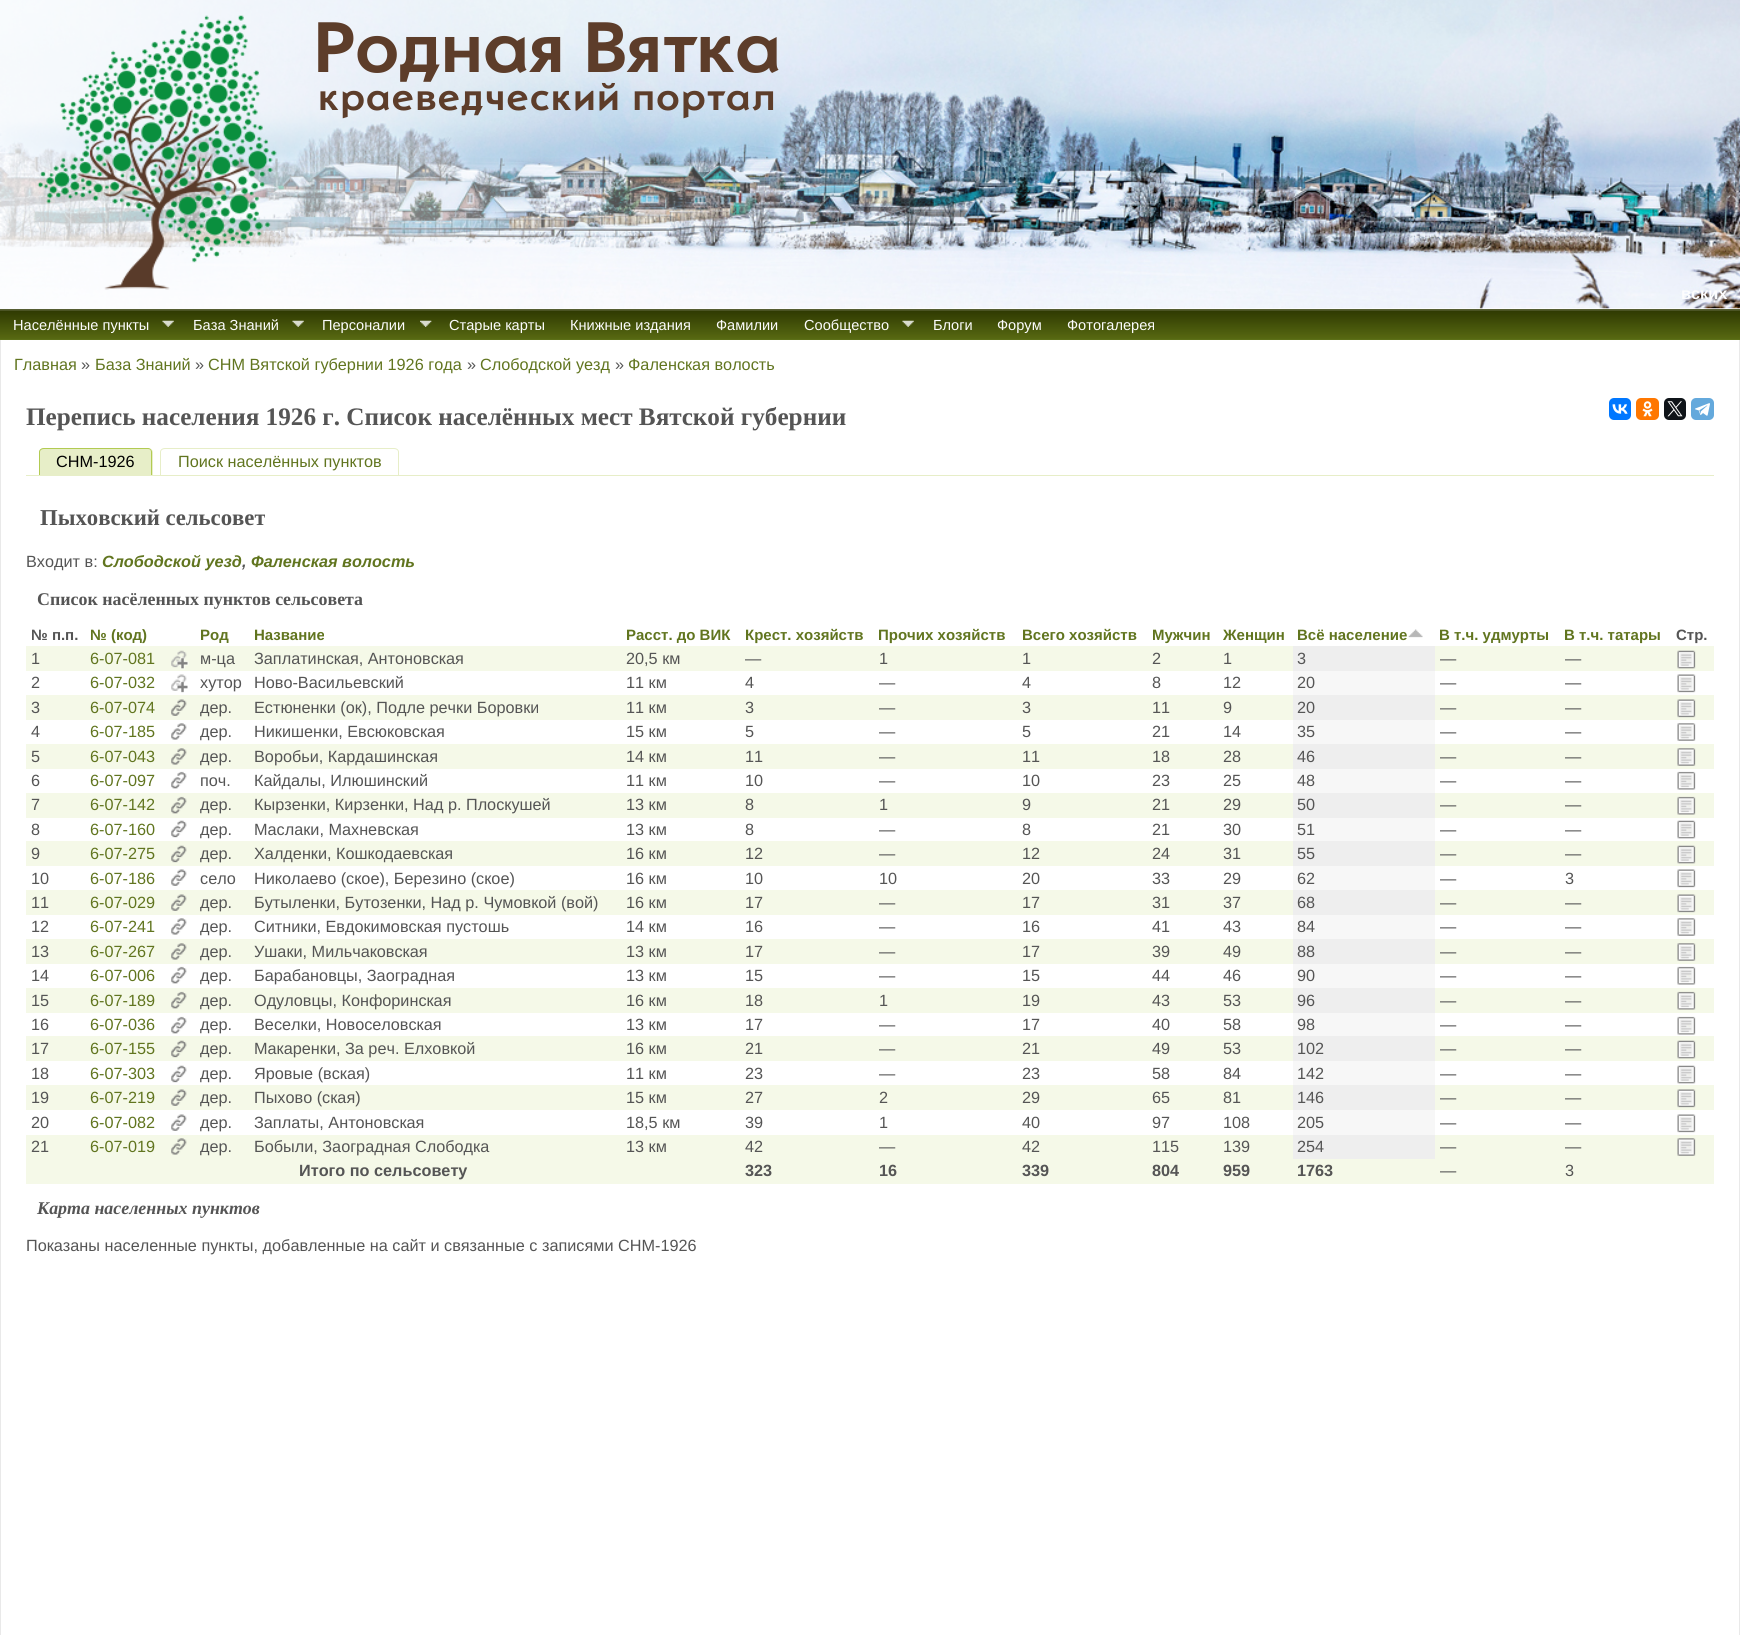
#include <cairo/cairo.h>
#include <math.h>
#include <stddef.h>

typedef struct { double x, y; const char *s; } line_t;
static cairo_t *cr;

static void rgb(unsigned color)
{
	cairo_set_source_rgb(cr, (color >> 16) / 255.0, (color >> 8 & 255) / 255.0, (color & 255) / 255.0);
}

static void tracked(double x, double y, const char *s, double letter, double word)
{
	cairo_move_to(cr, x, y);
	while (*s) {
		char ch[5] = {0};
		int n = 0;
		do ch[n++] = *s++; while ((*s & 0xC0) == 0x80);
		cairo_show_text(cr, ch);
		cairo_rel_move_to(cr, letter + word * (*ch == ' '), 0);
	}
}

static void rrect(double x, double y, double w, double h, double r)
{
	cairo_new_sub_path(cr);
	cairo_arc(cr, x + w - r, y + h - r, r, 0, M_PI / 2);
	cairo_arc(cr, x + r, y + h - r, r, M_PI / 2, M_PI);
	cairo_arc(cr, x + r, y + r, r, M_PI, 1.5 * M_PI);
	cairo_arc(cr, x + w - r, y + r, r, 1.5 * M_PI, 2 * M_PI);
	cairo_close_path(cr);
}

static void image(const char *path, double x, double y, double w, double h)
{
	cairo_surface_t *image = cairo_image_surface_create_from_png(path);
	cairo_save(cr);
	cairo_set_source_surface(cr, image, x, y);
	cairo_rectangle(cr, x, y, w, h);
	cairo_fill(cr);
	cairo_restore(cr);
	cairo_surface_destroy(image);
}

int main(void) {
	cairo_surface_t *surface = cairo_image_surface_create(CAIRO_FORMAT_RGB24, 1740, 1635);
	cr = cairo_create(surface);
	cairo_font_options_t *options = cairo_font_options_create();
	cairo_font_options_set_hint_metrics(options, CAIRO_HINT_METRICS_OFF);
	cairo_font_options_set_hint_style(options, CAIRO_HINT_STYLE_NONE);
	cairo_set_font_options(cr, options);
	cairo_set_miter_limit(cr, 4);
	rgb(0xffffff);
	cairo_paint(cr);
	image("img/1.png", 0, 0, 1740, 309);
	image("img/2.png", 0, 0, 1069, 308);
	image("img/3.png", 37, 15, 240, 275);
	rgb(0x61751f);
	cairo_rectangle(cr, 0, 339, 1740, 1);
	cairo_fill(cr);
	image("img/4.png", 0, 309, 1740, 31);
	image("img/5.png", 162, 320, 12, 7);
	image("img/6.png", 292, 320, 12, 7);
	image("img/7.png", 420, 320, 12, 7);
	image("img/5.png", 902, 320, 12, 7);
	rgb(0xe9e9e9);
	cairo_rectangle(cr, 1739, 340, 1, 1295);
	cairo_fill(cr);
	cairo_rectangle(cr, 0, 340, 1, 1295);
	cairo_fill(cr);
	rgb(0x0077ff);
	rrect(1609, 398, 22, 22, 5);
	cairo_fill(cr);
	image("img/8.png", 1612, 404, 16, 10);
	rgb(0xff7700);
	rrect(1636, 398, 23, 22, 5);
	cairo_fill(cr);
	image("img/9.png", 1642, 401, 11, 16);
	rgb(0x0f1419);
	rrect(1664, 398, 22, 22, 5);
	cairo_fill(cr);
	image("img/10.png", 1667, 401, 16, 16);
	rgb(0x64a9dc);
	rrect(1691, 398, 23, 22, 5);
	cairo_fill(cr);
	image("img/11.png", 1695, 403, 15, 13);
	rgb(0xe7eec8);
	cairo_rectangle(cr, 26, 475, 1688, 1);
	cairo_fill(cr);
	cairo_new_path(cr);
	cairo_move_to(cr, 44, 448);
	cairo_line_to(cr, 148, 448);
	cairo_curve_to(cr, 151, 448, 153, 450, 153, 453);
	cairo_line_to(cr, 153, 475);
	cairo_line_to(cr, 39, 475);
	cairo_line_to(cr, 39, 453);
	cairo_curve_to(cr, 39, 450, 41, 448, 44, 448);
	cairo_close_path(cr);
	cairo_fill(cr);
	rgb(0xb2cb52);
	cairo_set_fill_rule(cr, CAIRO_FILL_RULE_EVEN_ODD);
	cairo_new_path(cr);
	cairo_move_to(cr, 44, 448);
	cairo_line_to(cr, 148, 448);
	cairo_curve_to(cr, 150, 448, 152, 450, 152, 452);
	cairo_line_to(cr, 152, 475);
	cairo_line_to(cr, 39, 475);
	cairo_line_to(cr, 39, 452);
	cairo_curve_to(cr, 39, 450, 41, 448, 44, 448);
	cairo_close_path(cr);
	cairo_move_to(cr, 44, 449);
	cairo_line_to(cr, 148, 449);
	cairo_curve_to(cr, 150, 449, 151, 450, 151, 452);
	cairo_line_to(cr, 151, 475);
	cairo_line_to(cr, 40, 475);
	cairo_line_to(cr, 40, 452);
	cairo_curve_to(cr, 40, 450, 42, 449, 44, 449);
	cairo_close_path(cr);
	cairo_fill(cr);
	rgb(0xe7eec8);
	cairo_new_path(cr);
	cairo_move_to(cr, 165, 448);
	cairo_line_to(cr, 394, 448);
	cairo_curve_to(cr, 397, 448, 399, 450, 399, 452);
	cairo_line_to(cr, 399, 475);
	cairo_line_to(cr, 160, 475);
	cairo_line_to(cr, 160, 452);
	cairo_curve_to(cr, 160, 450, 162, 448, 165, 448);
	cairo_close_path(cr);
	cairo_move_to(cr, 165, 449);
	cairo_line_to(cr, 394, 449);
	cairo_curve_to(cr, 396, 449, 398, 450, 398, 452);
	cairo_line_to(cr, 398, 475);
	cairo_line_to(cr, 161, 475);
	cairo_line_to(cr, 161, 452);
	cairo_curve_to(cr, 161, 450, 163, 449, 165, 449);
	cairo_close_path(cr);
	cairo_fill(cr);
	image("img/12.png", 1408, 629, 15, 9);
	rgb(0xf5f9e8);
	cairo_rectangle(cr, 26, 646, 1688, 25);
	cairo_fill(cr);
	image("img/13.png", 171, 650, 18, 20);
	rgb(0xeeeeee);
	cairo_rectangle(cr, 1293, 646, 142, 25);
	cairo_fill(cr);
	image("img/14.png", 1677, 650, 19, 19);
	image("img/15.png", 171, 674, 17, 19);
	rgb(0xf7f7f7);
	cairo_rectangle(cr, 1293, 671, 142, 24);
	cairo_fill(cr);
	image("img/16.png", 1677, 674, 19, 19);
	rgb(0xf5f9e8);
	cairo_rectangle(cr, 26, 695, 1688, 25);
	cairo_fill(cr);
	image("img/17.png", 171, 699, 16, 17);
	rgb(0xeeeeee);
	cairo_rectangle(cr, 1293, 695, 142, 25);
	cairo_fill(cr);
	image("img/18.png", 1677, 699, 19, 19);
	image("img/19.png", 171, 723, 16, 17);
	rgb(0xf7f7f7);
	cairo_rectangle(cr, 1293, 720, 142, 24);
	cairo_fill(cr);
	image("img/20.png", 1677, 723, 19, 18);
	rgb(0xf5f9e8);
	cairo_rectangle(cr, 26, 744, 1688, 25);
	cairo_fill(cr);
	image("img/21.png", 171, 748, 16, 17);
	rgb(0xeeeeee);
	cairo_rectangle(cr, 1293, 744, 142, 25);
	cairo_fill(cr);
	image("img/22.png", 1677, 748, 19, 18);
	image("img/23.png", 171, 771, 16, 18);
	rgb(0xf7f7f7);
	cairo_rectangle(cr, 1293, 769, 142, 24);
	cairo_fill(cr);
	image("img/24.png", 1677, 771, 19, 19);
	rgb(0xf5f9e8);
	cairo_rectangle(cr, 26, 793, 1688, 25);
	cairo_fill(cr);
	image("img/25.png", 171, 796, 16, 18);
	rgb(0xeeeeee);
	cairo_rectangle(cr, 1293, 793, 142, 25);
	cairo_fill(cr);
	image("img/26.png", 1677, 796, 19, 19);
	image("img/27.png", 171, 820, 16, 18);
	rgb(0xf7f7f7);
	cairo_rectangle(cr, 1293, 818, 142, 23);
	cairo_fill(cr);
	image("img/28.png", 1677, 820, 19, 19);
	rgb(0xf5f9e8);
	cairo_rectangle(cr, 26, 841, 1688, 25);
	cairo_fill(cr);
	image("img/29.png", 171, 845, 16, 18);
	rgb(0xeeeeee);
	cairo_rectangle(cr, 1293, 841, 142, 25);
	cairo_fill(cr);
	image("img/14.png", 1677, 845, 19, 19);
	image("img/30.png", 171, 869, 16, 17);
	rgb(0xf7f7f7);
	cairo_rectangle(cr, 1293, 866, 142, 24);
	cairo_fill(cr);
	image("img/16.png", 1677, 869, 19, 19);
	rgb(0xf5f9e8);
	cairo_rectangle(cr, 26, 890, 1688, 25);
	cairo_fill(cr);
	image("img/17.png", 171, 894, 16, 17);
	rgb(0xeeeeee);
	cairo_rectangle(cr, 1293, 890, 142, 25);
	cairo_fill(cr);
	image("img/18.png", 1677, 894, 19, 19);
	image("img/19.png", 171, 918, 16, 17);
	rgb(0xf7f7f7);
	cairo_rectangle(cr, 1293, 915, 142, 24);
	cairo_fill(cr);
	image("img/20.png", 1677, 918, 19, 18);
	rgb(0xf5f9e8);
	cairo_rectangle(cr, 26, 939, 1688, 25);
	cairo_fill(cr);
	image("img/21.png", 171, 943, 16, 17);
	rgb(0xeeeeee);
	cairo_rectangle(cr, 1293, 939, 142, 25);
	cairo_fill(cr);
	image("img/22.png", 1677, 943, 19, 18);
	image("img/23.png", 171, 966, 16, 18);
	rgb(0xf7f7f7);
	cairo_rectangle(cr, 1293, 964, 142, 24);
	cairo_fill(cr);
	image("img/24.png", 1677, 966, 19, 19);
	rgb(0xf5f9e8);
	cairo_rectangle(cr, 26, 988, 1688, 25);
	cairo_fill(cr);
	image("img/25.png", 171, 991, 16, 18);
	rgb(0xeeeeee);
	cairo_rectangle(cr, 1293, 988, 142, 25);
	cairo_fill(cr);
	image("img/26.png", 1677, 991, 19, 19);
	image("img/23.png", 171, 1016, 16, 18);
	rgb(0xf7f7f7);
	cairo_rectangle(cr, 1293, 1013, 142, 23);
	cairo_fill(cr);
	image("img/24.png", 1677, 1016, 19, 19);
	rgb(0xf5f9e8);
	cairo_rectangle(cr, 26, 1036, 1688, 25);
	cairo_fill(cr);
	image("img/29.png", 171, 1040, 16, 18);
	rgb(0xeeeeee);
	cairo_rectangle(cr, 1293, 1036, 142, 25);
	cairo_fill(cr);
	image("img/14.png", 1677, 1040, 19, 19);
	image("img/27.png", 171, 1065, 16, 18);
	rgb(0xf7f7f7);
	cairo_rectangle(cr, 1293, 1061, 142, 24);
	cairo_fill(cr);
	image("img/28.png", 1677, 1065, 19, 19);
	rgb(0xf5f9e8);
	cairo_rectangle(cr, 26, 1085, 1688, 25);
	cairo_fill(cr);
	image("img/17.png", 171, 1089, 16, 17);
	rgb(0xeeeeee);
	cairo_rectangle(cr, 1293, 1085, 142, 25);
	cairo_fill(cr);
	image("img/18.png", 1677, 1089, 19, 19);
	image("img/30.png", 171, 1114, 16, 17);
	rgb(0xf7f7f7);
	cairo_rectangle(cr, 1293, 1110, 142, 25);
	cairo_fill(cr);
	image("img/16.png", 1677, 1114, 19, 19);
	rgb(0xf5f9e8);
	cairo_rectangle(cr, 26, 1135, 1688, 49);
	cairo_fill(cr);
	image("img/21.png", 171, 1138, 16, 17);
	rgb(0xeeeeee);
	cairo_rectangle(cr, 1293, 1135, 142, 24);
	cairo_fill(cr);
	image("img/22.png", 1677, 1138, 19, 18);
	cairo_select_font_face(cr, "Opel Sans", CAIRO_FONT_SLANT_NORMAL, CAIRO_FONT_WEIGHT_BOLD);
	cairo_set_font_size(cr, 75);
	rgb(0x5d3d2a);
	cairo_move_to(cr, 313, 72);
	cairo_show_text(cr, "Родная Вятка");
	cairo_set_font_size(cr, 40);
	tracked(318, 110, "краеведческий портал", 1.25, 0);
	cairo_select_font_face(cr, "Liberation Sans", CAIRO_FONT_SLANT_NORMAL, CAIRO_FONT_WEIGHT_BOLD);
	cairo_set_font_size(cr, 16.25);
	rgb(0xfdfdfe);
	cairo_move_to(cr, 1681, 299);
	cairo_show_text(cr, "вских");
	cairo_select_font_face(cr, "Liberation Sans", CAIRO_FONT_SLANT_NORMAL, CAIRO_FONT_WEIGHT_NORMAL);
	cairo_set_font_size(cr, 14.6);
	{
		static const line_t items[] = {
			{13, 330, "Населённые пункты"},
			{193, 330, "База Знаний"},
			{322, 330, "Персоналии"},
			{449, 330, "Старые карты"},
			{570, 330, "Книжные издания"},
			{716, 330, "Фамилии"},
			{804, 330, "Сообщество"},
			{933, 330, "Блоги"},
			{997, 330, "Форум"},
			{1067, 330, "Фотогалерея"},
		};
		for (size_t i = 0; i < sizeof items / sizeof *items; i++) {
			cairo_move_to(cr, items[i].x, items[i].y);
			cairo_show_text(cr, items[i].s);
		}
	}
	cairo_set_font_size(cr, 16.25);
	rgb(0x61751f);
	cairo_move_to(cr, 14, 370);
	cairo_show_text(cr, "Главная");
	rgb(0x555555);
	cairo_move_to(cr, 81, 370);
	cairo_show_text(cr, "»");
	rgb(0x61751f);
	cairo_move_to(cr, 95, 370);
	cairo_show_text(cr, "База Знаний");
	rgb(0x555555);
	cairo_move_to(cr, 195, 370);
	cairo_show_text(cr, "»");
	rgb(0x61751f);
	cairo_move_to(cr, 208, 370);
	cairo_show_text(cr, "СНМ Вятской губернии 1926 года");
	rgb(0x555555);
	cairo_move_to(cr, 467, 370);
	cairo_show_text(cr, "»");
	rgb(0x61751f);
	cairo_move_to(cr, 480, 370);
	cairo_show_text(cr, "Слободской уезд");
	rgb(0x555555);
	cairo_move_to(cr, 615, 370);
	cairo_show_text(cr, "»");
	rgb(0x61751f);
	cairo_move_to(cr, 628, 370);
	cairo_show_text(cr, "Фаленская волость");
	cairo_select_font_face(cr, "Liberation Serif", CAIRO_FONT_SLANT_NORMAL, CAIRO_FONT_WEIGHT_BOLD);
	cairo_set_font_size(cr, 25.2);
	rgb(0x555555);
	cairo_move_to(cr, 26, 425);
	cairo_show_text(cr, "Перепись населения 1926 г. Список населённых мест Вятской губернии");
	cairo_select_font_face(cr, "Liberation Sans", CAIRO_FONT_SLANT_NORMAL, CAIRO_FONT_WEIGHT_NORMAL);
	cairo_set_font_size(cr, 16.25);
	rgb(0x000000);
	cairo_move_to(cr, 56, 467);
	cairo_show_text(cr, "СНМ-1926");
	rgb(0x61751f);
	cairo_move_to(cr, 178, 467);
	cairo_show_text(cr, "Поиск населённых пунктов");
	cairo_select_font_face(cr, "Liberation Serif", CAIRO_FONT_SLANT_NORMAL, CAIRO_FONT_WEIGHT_BOLD);
	cairo_set_font_size(cr, 22.75);
	rgb(0x555555);
	cairo_move_to(cr, 40, 525);
	cairo_show_text(cr, "Пыховский сельсовет");
	cairo_select_font_face(cr, "Liberation Sans", CAIRO_FONT_SLANT_NORMAL, CAIRO_FONT_WEIGHT_NORMAL);
	cairo_set_font_size(cr, 16.25);
	cairo_move_to(cr, 26, 567);
	cairo_show_text(cr, "Входит в:");
	cairo_select_font_face(cr, "Liberation Sans", CAIRO_FONT_SLANT_ITALIC, CAIRO_FONT_WEIGHT_BOLD);
	rgb(0x61751f);
	cairo_move_to(cr, 102, 567);
	cairo_show_text(cr, "Слободской уезд");
	rgb(0x555555);
	cairo_move_to(cr, 242, 567);
	cairo_show_text(cr, ",");
	rgb(0x61751f);
	cairo_move_to(cr, 251, 567);
	cairo_show_text(cr, "Фаленская волость");
	cairo_select_font_face(cr, "Liberation Serif", CAIRO_FONT_SLANT_NORMAL, CAIRO_FONT_WEIGHT_BOLD);
	cairo_set_font_size(cr, 17.9);
	rgb(0x555555);
	cairo_move_to(cr, 37, 605);
	cairo_show_text(cr, "Список насёленных пунктов сельсовета");
	cairo_select_font_face(cr, "Liberation Sans", CAIRO_FONT_SLANT_NORMAL, CAIRO_FONT_WEIGHT_BOLD);
	cairo_set_font_size(cr, 15);
	cairo_move_to(cr, 31, 640);
	cairo_show_text(cr, "№ п.п.");
	rgb(0x61751f);
	{
		static const line_t items[] = {
			{90, 640, "№ (код)"},
			{200, 640, "Род"},
			{254, 640, "Название"},
			{626, 640, "Расст. до ВИК"},
			{745, 640, "Крест. хозяйств"},
			{878, 640, "Прочих хозяйств"},
			{1022, 640, "Всего хозяйств"},
			{1152, 640, "Мужчин"},
			{1223, 640, "Женщин"},
			{1297, 640, "Всё население"},
			{1439, 640, "В т.ч. удмурты"},
			{1564, 640, "В т.ч. татары"},
		};
		for (size_t i = 0; i < sizeof items / sizeof *items; i++) {
			cairo_move_to(cr, items[i].x, items[i].y);
			cairo_show_text(cr, items[i].s);
		}
	}
	rgb(0x555555);
	cairo_move_to(cr, 1676, 640);
	cairo_show_text(cr, "Стр.");
	cairo_select_font_face(cr, "Liberation Sans", CAIRO_FONT_SLANT_NORMAL, CAIRO_FONT_WEIGHT_NORMAL);
	cairo_set_font_size(cr, 16.25);
	cairo_move_to(cr, 31, 664);
	cairo_show_text(cr, "1");
	rgb(0x61751f);
	cairo_move_to(cr, 90, 664);
	cairo_show_text(cr, "6-07-081");
	rgb(0x555555);
	{
		static const line_t items[] = {
			{200, 664, "м-ца"},
			{254, 664, "Заплатинская, Антоновская"},
			{626, 664, "20,5 км"},
			{745, 664, "—"},
			{879, 664, "1"},
			{1022, 664, "1"},
			{1152, 664, "2"},
			{1223, 664, "1"},
			{1297, 664, "3"},
			{1440, 664, "—"},
			{1565, 664, "—"},
			{31, 688, "2"},
		};
		for (size_t i = 0; i < sizeof items / sizeof *items; i++) {
			cairo_move_to(cr, items[i].x, items[i].y);
			cairo_show_text(cr, items[i].s);
		}
	}
	rgb(0x61751f);
	cairo_move_to(cr, 90, 688);
	cairo_show_text(cr, "6-07-032");
	rgb(0x555555);
	{
		static const line_t items[] = {
			{200, 688, "хутор"},
			{254, 688, "Ново-Васильевский"},
			{626, 688, "11 км"},
			{745, 688, "4"},
			{879, 688, "—"},
			{1022, 688, "4"},
			{1152, 688, "8"},
			{1223, 688, "12"},
			{1297, 688, "20"},
			{1440, 688, "—"},
			{1565, 688, "—"},
			{31, 713, "3"},
		};
		for (size_t i = 0; i < sizeof items / sizeof *items; i++) {
			cairo_move_to(cr, items[i].x, items[i].y);
			cairo_show_text(cr, items[i].s);
		}
	}
	rgb(0x61751f);
	cairo_move_to(cr, 90, 713);
	cairo_show_text(cr, "6-07-074");
	rgb(0x555555);
	{
		static const line_t items[] = {
			{200, 713, "дер."},
			{254, 713, "Естюненки (ок), Подле речки Боровки"},
			{626, 713, "11 км"},
			{745, 713, "3"},
			{879, 713, "—"},
			{1022, 713, "3"},
			{1152, 713, "11"},
			{1223, 713, "9"},
			{1297, 713, "20"},
			{1440, 713, "—"},
			{1565, 713, "—"},
			{31, 737, "4"},
		};
		for (size_t i = 0; i < sizeof items / sizeof *items; i++) {
			cairo_move_to(cr, items[i].x, items[i].y);
			cairo_show_text(cr, items[i].s);
		}
	}
	rgb(0x61751f);
	cairo_move_to(cr, 90, 737);
	cairo_show_text(cr, "6-07-185");
	rgb(0x555555);
	{
		static const line_t items[] = {
			{200, 737, "дер."},
			{254, 737, "Никишенки, Евсюковская"},
			{626, 737, "15 км"},
			{745, 737, "5"},
			{879, 737, "—"},
			{1022, 737, "5"},
			{1152, 737, "21"},
			{1223, 737, "14"},
			{1297, 737, "35"},
			{1440, 737, "—"},
			{1565, 737, "—"},
			{31, 762, "5"},
		};
		for (size_t i = 0; i < sizeof items / sizeof *items; i++) {
			cairo_move_to(cr, items[i].x, items[i].y);
			cairo_show_text(cr, items[i].s);
		}
	}
	rgb(0x61751f);
	cairo_move_to(cr, 90, 762);
	cairo_show_text(cr, "6-07-043");
	rgb(0x555555);
	{
		static const line_t items[] = {
			{200, 762, "дер."},
			{254, 762, "Воробьи, Кардашинская"},
			{626, 762, "14 км"},
			{745, 762, "11"},
			{879, 762, "—"},
			{1022, 762, "11"},
			{1152, 762, "18"},
			{1223, 762, "28"},
			{1297, 762, "46"},
			{1440, 762, "—"},
			{1565, 762, "—"},
			{31, 786, "6"},
		};
		for (size_t i = 0; i < sizeof items / sizeof *items; i++) {
			cairo_move_to(cr, items[i].x, items[i].y);
			cairo_show_text(cr, items[i].s);
		}
	}
	rgb(0x61751f);
	cairo_move_to(cr, 90, 786);
	cairo_show_text(cr, "6-07-097");
	rgb(0x555555);
	{
		static const line_t items[] = {
			{200, 786, "поч."},
			{254, 786, "Кайдалы, Илюшинский"},
			{626, 786, "11 км"},
			{745, 786, "10"},
			{879, 786, "—"},
			{1022, 786, "10"},
			{1152, 786, "23"},
			{1223, 786, "25"},
			{1297, 786, "48"},
			{1440, 786, "—"},
			{1565, 786, "—"},
			{31, 810, "7"},
		};
		for (size_t i = 0; i < sizeof items / sizeof *items; i++) {
			cairo_move_to(cr, items[i].x, items[i].y);
			cairo_show_text(cr, items[i].s);
		}
	}
	rgb(0x61751f);
	cairo_move_to(cr, 90, 810);
	cairo_show_text(cr, "6-07-142");
	rgb(0x555555);
	{
		static const line_t items[] = {
			{200, 810, "дер."},
			{254, 810, "Кырзенки, Кирзенки, Над р. Плоскушей"},
			{626, 810, "13 км"},
			{745, 810, "8"},
			{879, 810, "1"},
			{1022, 810, "9"},
			{1152, 810, "21"},
			{1223, 810, "29"},
			{1297, 810, "50"},
			{1440, 810, "—"},
			{1565, 810, "—"},
			{31, 835, "8"},
		};
		for (size_t i = 0; i < sizeof items / sizeof *items; i++) {
			cairo_move_to(cr, items[i].x, items[i].y);
			cairo_show_text(cr, items[i].s);
		}
	}
	rgb(0x61751f);
	cairo_move_to(cr, 90, 835);
	cairo_show_text(cr, "6-07-160");
	rgb(0x555555);
	{
		static const line_t items[] = {
			{200, 835, "дер."},
			{254, 835, "Маслаки, Махневская"},
			{626, 835, "13 км"},
			{745, 835, "8"},
			{879, 835, "—"},
			{1022, 835, "8"},
			{1152, 835, "21"},
			{1223, 835, "30"},
			{1297, 835, "51"},
			{1440, 835, "—"},
			{1565, 835, "—"},
			{31, 859, "9"},
		};
		for (size_t i = 0; i < sizeof items / sizeof *items; i++) {
			cairo_move_to(cr, items[i].x, items[i].y);
			cairo_show_text(cr, items[i].s);
		}
	}
	rgb(0x61751f);
	cairo_move_to(cr, 90, 859);
	cairo_show_text(cr, "6-07-275");
	rgb(0x555555);
	{
		static const line_t items[] = {
			{200, 859, "дер."},
			{254, 859, "Халденки, Кошкодаевская"},
			{626, 859, "16 км"},
			{745, 859, "12"},
			{879, 859, "—"},
			{1022, 859, "12"},
			{1152, 859, "24"},
			{1223, 859, "31"},
			{1297, 859, "55"},
			{1440, 859, "—"},
			{1565, 859, "—"},
			{31, 884, "10"},
		};
		for (size_t i = 0; i < sizeof items / sizeof *items; i++) {
			cairo_move_to(cr, items[i].x, items[i].y);
			cairo_show_text(cr, items[i].s);
		}
	}
	rgb(0x61751f);
	cairo_move_to(cr, 90, 884);
	cairo_show_text(cr, "6-07-186");
	rgb(0x555555);
	{
		static const line_t items[] = {
			{200, 884, "село"},
			{254, 884, "Николаево (ское), Березино (ское)"},
			{626, 884, "16 км"},
			{745, 884, "10"},
			{879, 884, "10"},
			{1022, 884, "20"},
			{1152, 884, "33"},
			{1223, 884, "29"},
			{1297, 884, "62"},
			{1440, 884, "—"},
			{1565, 884, "3"},
			{31, 908, "11"},
		};
		for (size_t i = 0; i < sizeof items / sizeof *items; i++) {
			cairo_move_to(cr, items[i].x, items[i].y);
			cairo_show_text(cr, items[i].s);
		}
	}
	rgb(0x61751f);
	cairo_move_to(cr, 90, 908);
	cairo_show_text(cr, "6-07-029");
	rgb(0x555555);
	{
		static const line_t items[] = {
			{200, 908, "дер."},
			{254, 908, "Бутыленки, Бутозенки, Над р. Чумовкой (вой)"},
			{626, 908, "16 км"},
			{745, 908, "17"},
			{879, 908, "—"},
			{1022, 908, "17"},
			{1152, 908, "31"},
			{1223, 908, "37"},
			{1297, 908, "68"},
			{1440, 908, "—"},
			{1565, 908, "—"},
			{31, 932, "12"},
		};
		for (size_t i = 0; i < sizeof items / sizeof *items; i++) {
			cairo_move_to(cr, items[i].x, items[i].y);
			cairo_show_text(cr, items[i].s);
		}
	}
	rgb(0x61751f);
	cairo_move_to(cr, 90, 932);
	cairo_show_text(cr, "6-07-241");
	rgb(0x555555);
	{
		static const line_t items[] = {
			{200, 932, "дер."},
			{254, 932, "Ситники, Евдокимовская пустошь"},
			{626, 932, "14 км"},
			{745, 932, "16"},
			{879, 932, "—"},
			{1022, 932, "16"},
			{1152, 932, "41"},
			{1223, 932, "43"},
			{1297, 932, "84"},
			{1440, 932, "—"},
			{1565, 932, "—"},
			{31, 957, "13"},
		};
		for (size_t i = 0; i < sizeof items / sizeof *items; i++) {
			cairo_move_to(cr, items[i].x, items[i].y);
			cairo_show_text(cr, items[i].s);
		}
	}
	rgb(0x61751f);
	cairo_move_to(cr, 90, 957);
	cairo_show_text(cr, "6-07-267");
	rgb(0x555555);
	{
		static const line_t items[] = {
			{200, 957, "дер."},
			{254, 957, "Ушаки, Мильчаковская"},
			{626, 957, "13 км"},
			{745, 957, "17"},
			{879, 957, "—"},
			{1022, 957, "17"},
			{1152, 957, "39"},
			{1223, 957, "49"},
			{1297, 957, "88"},
			{1440, 957, "—"},
			{1565, 957, "—"},
			{31, 981, "14"},
		};
		for (size_t i = 0; i < sizeof items / sizeof *items; i++) {
			cairo_move_to(cr, items[i].x, items[i].y);
			cairo_show_text(cr, items[i].s);
		}
	}
	rgb(0x61751f);
	cairo_move_to(cr, 90, 981);
	cairo_show_text(cr, "6-07-006");
	rgb(0x555555);
	{
		static const line_t items[] = {
			{200, 981, "дер."},
			{254, 981, "Барабановцы, Заоградная"},
			{626, 981, "13 км"},
			{745, 981, "15"},
			{879, 981, "—"},
			{1022, 981, "15"},
			{1152, 981, "44"},
			{1223, 981, "46"},
			{1297, 981, "90"},
			{1440, 981, "—"},
			{1565, 981, "—"},
			{31, 1006, "15"},
		};
		for (size_t i = 0; i < sizeof items / sizeof *items; i++) {
			cairo_move_to(cr, items[i].x, items[i].y);
			cairo_show_text(cr, items[i].s);
		}
	}
	rgb(0x61751f);
	cairo_move_to(cr, 90, 1006);
	cairo_show_text(cr, "6-07-189");
	rgb(0x555555);
	{
		static const line_t items[] = {
			{200, 1006, "дер."},
			{254, 1006, "Одуловцы, Конфоринская"},
			{626, 1006, "16 км"},
			{745, 1006, "18"},
			{879, 1006, "1"},
			{1022, 1006, "19"},
			{1152, 1006, "43"},
			{1223, 1006, "53"},
			{1297, 1006, "96"},
			{1440, 1006, "—"},
			{1565, 1006, "—"},
			{31, 1030, "16"},
		};
		for (size_t i = 0; i < sizeof items / sizeof *items; i++) {
			cairo_move_to(cr, items[i].x, items[i].y);
			cairo_show_text(cr, items[i].s);
		}
	}
	rgb(0x61751f);
	cairo_move_to(cr, 90, 1030);
	cairo_show_text(cr, "6-07-036");
	rgb(0x555555);
	{
		static const line_t items[] = {
			{200, 1030, "дер."},
			{254, 1030, "Веселки, Новоселовская"},
			{626, 1030, "13 км"},
			{745, 1030, "17"},
			{879, 1030, "—"},
			{1022, 1030, "17"},
			{1152, 1030, "40"},
			{1223, 1030, "58"},
			{1297, 1030, "98"},
			{1440, 1030, "—"},
			{1565, 1030, "—"},
			{31, 1054, "17"},
		};
		for (size_t i = 0; i < sizeof items / sizeof *items; i++) {
			cairo_move_to(cr, items[i].x, items[i].y);
			cairo_show_text(cr, items[i].s);
		}
	}
	rgb(0x61751f);
	cairo_move_to(cr, 90, 1054);
	cairo_show_text(cr, "6-07-155");
	rgb(0x555555);
	{
		static const line_t items[] = {
			{200, 1054, "дер."},
			{254, 1054, "Макаренки, За реч. Елховкой"},
			{626, 1054, "16 км"},
			{745, 1054, "21"},
			{879, 1054, "—"},
			{1022, 1054, "21"},
			{1152, 1054, "49"},
			{1223, 1054, "53"},
			{1297, 1054, "102"},
			{1440, 1054, "—"},
			{1565, 1054, "—"},
			{31, 1079, "18"},
		};
		for (size_t i = 0; i < sizeof items / sizeof *items; i++) {
			cairo_move_to(cr, items[i].x, items[i].y);
			cairo_show_text(cr, items[i].s);
		}
	}
	rgb(0x61751f);
	cairo_move_to(cr, 90, 1079);
	cairo_show_text(cr, "6-07-303");
	rgb(0x555555);
	{
		static const line_t items[] = {
			{200, 1079, "дер."},
			{254, 1079, "Яровые (вская)"},
			{626, 1079, "11 км"},
			{745, 1079, "23"},
			{879, 1079, "—"},
			{1022, 1079, "23"},
			{1152, 1079, "58"},
			{1223, 1079, "84"},
			{1297, 1079, "142"},
			{1440, 1079, "—"},
			{1565, 1079, "—"},
			{31, 1103, "19"},
		};
		for (size_t i = 0; i < sizeof items / sizeof *items; i++) {
			cairo_move_to(cr, items[i].x, items[i].y);
			cairo_show_text(cr, items[i].s);
		}
	}
	rgb(0x61751f);
	cairo_move_to(cr, 90, 1103);
	cairo_show_text(cr, "6-07-219");
	rgb(0x555555);
	{
		static const line_t items[] = {
			{200, 1103, "дер."},
			{254, 1103, "Пыхово (ская)"},
			{626, 1103, "15 км"},
			{745, 1103, "27"},
			{879, 1103, "2"},
			{1022, 1103, "29"},
			{1152, 1103, "65"},
			{1223, 1103, "81"},
			{1297, 1103, "146"},
			{1440, 1103, "—"},
			{1565, 1103, "—"},
			{31, 1128, "20"},
		};
		for (size_t i = 0; i < sizeof items / sizeof *items; i++) {
			cairo_move_to(cr, items[i].x, items[i].y);
			cairo_show_text(cr, items[i].s);
		}
	}
	rgb(0x61751f);
	cairo_move_to(cr, 90, 1128);
	cairo_show_text(cr, "6-07-082");
	rgb(0x555555);
	{
		static const line_t items[] = {
			{200, 1128, "дер."},
			{254, 1128, "Заплаты, Антоновская"},
			{626, 1128, "18,5 км"},
			{745, 1128, "39"},
			{879, 1128, "1"},
			{1022, 1128, "40"},
			{1152, 1128, "97"},
			{1223, 1128, "108"},
			{1297, 1128, "205"},
			{1440, 1128, "—"},
			{1565, 1128, "—"},
			{31, 1152, "21"},
		};
		for (size_t i = 0; i < sizeof items / sizeof *items; i++) {
			cairo_move_to(cr, items[i].x, items[i].y);
			cairo_show_text(cr, items[i].s);
		}
	}
	rgb(0x61751f);
	cairo_move_to(cr, 90, 1152);
	cairo_show_text(cr, "6-07-019");
	rgb(0x555555);
	{
		static const line_t items[] = {
			{200, 1152, "дер."},
			{254, 1152, "Бобыли, Заоградная Слободка"},
			{626, 1152, "13 км"},
			{745, 1152, "42"},
			{879, 1152, "—"},
			{1022, 1152, "42"},
			{1152, 1152, "115"},
			{1223, 1152, "139"},
			{1297, 1152, "254"},
			{1440, 1152, "—"},
			{1565, 1152, "—"},
		};
		for (size_t i = 0; i < sizeof items / sizeof *items; i++) {
			cairo_move_to(cr, items[i].x, items[i].y);
			cairo_show_text(cr, items[i].s);
		}
	}
	cairo_select_font_face(cr, "Liberation Sans", CAIRO_FONT_SLANT_NORMAL, CAIRO_FONT_WEIGHT_BOLD);
	{
		static const line_t items[] = {
			{299, 1176, "Итого по сельсовету"},
			{745, 1176, "323"},
			{879, 1176, "16"},
			{1022, 1176, "339"},
			{1152, 1176, "804"},
			{1223, 1176, "959"},
			{1297, 1176, "1763"},
		};
		for (size_t i = 0; i < sizeof items / sizeof *items; i++) {
			cairo_move_to(cr, items[i].x, items[i].y);
			cairo_show_text(cr, items[i].s);
		}
	}
	cairo_select_font_face(cr, "Liberation Sans", CAIRO_FONT_SLANT_NORMAL, CAIRO_FONT_WEIGHT_NORMAL);
	cairo_move_to(cr, 1440, 1176);
	cairo_show_text(cr, "—");
	cairo_move_to(cr, 1565, 1176);
	cairo_show_text(cr, "3");
	cairo_select_font_face(cr, "Liberation Serif", CAIRO_FONT_SLANT_ITALIC, CAIRO_FONT_WEIGHT_BOLD);
	cairo_set_font_size(cr, 17.9);
	cairo_move_to(cr, 37, 1214);
	cairo_show_text(cr, "Карта населенных пунктов");
	cairo_select_font_face(cr, "Liberation Sans", CAIRO_FONT_SLANT_NORMAL, CAIRO_FONT_WEIGHT_NORMAL);
	cairo_set_font_size(cr, 16.25);
	cairo_move_to(cr, 26, 1251);
	cairo_show_text(cr, "Показаны населенные пункты, добавленные на сайт и связанные с записями СНМ-1926");
	cairo_surface_write_to_png(surface, "page.png");
	cairo_font_options_destroy(options);
	cairo_destroy(cr);
	cairo_surface_destroy(surface);
	return 0;
}
